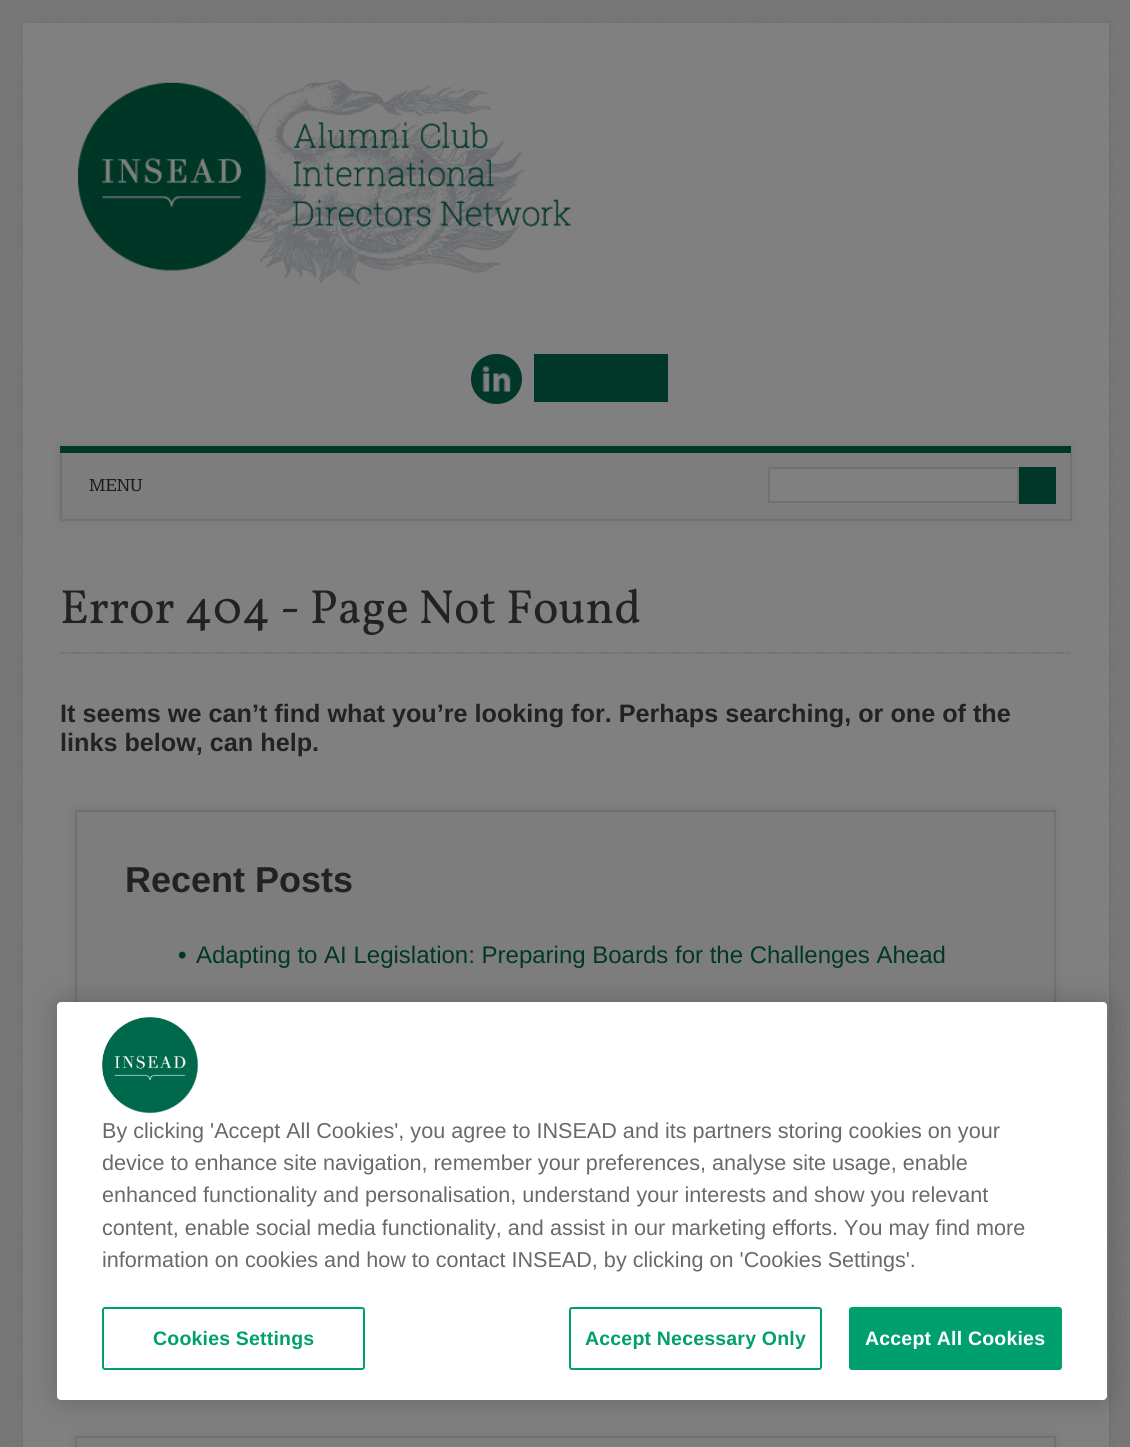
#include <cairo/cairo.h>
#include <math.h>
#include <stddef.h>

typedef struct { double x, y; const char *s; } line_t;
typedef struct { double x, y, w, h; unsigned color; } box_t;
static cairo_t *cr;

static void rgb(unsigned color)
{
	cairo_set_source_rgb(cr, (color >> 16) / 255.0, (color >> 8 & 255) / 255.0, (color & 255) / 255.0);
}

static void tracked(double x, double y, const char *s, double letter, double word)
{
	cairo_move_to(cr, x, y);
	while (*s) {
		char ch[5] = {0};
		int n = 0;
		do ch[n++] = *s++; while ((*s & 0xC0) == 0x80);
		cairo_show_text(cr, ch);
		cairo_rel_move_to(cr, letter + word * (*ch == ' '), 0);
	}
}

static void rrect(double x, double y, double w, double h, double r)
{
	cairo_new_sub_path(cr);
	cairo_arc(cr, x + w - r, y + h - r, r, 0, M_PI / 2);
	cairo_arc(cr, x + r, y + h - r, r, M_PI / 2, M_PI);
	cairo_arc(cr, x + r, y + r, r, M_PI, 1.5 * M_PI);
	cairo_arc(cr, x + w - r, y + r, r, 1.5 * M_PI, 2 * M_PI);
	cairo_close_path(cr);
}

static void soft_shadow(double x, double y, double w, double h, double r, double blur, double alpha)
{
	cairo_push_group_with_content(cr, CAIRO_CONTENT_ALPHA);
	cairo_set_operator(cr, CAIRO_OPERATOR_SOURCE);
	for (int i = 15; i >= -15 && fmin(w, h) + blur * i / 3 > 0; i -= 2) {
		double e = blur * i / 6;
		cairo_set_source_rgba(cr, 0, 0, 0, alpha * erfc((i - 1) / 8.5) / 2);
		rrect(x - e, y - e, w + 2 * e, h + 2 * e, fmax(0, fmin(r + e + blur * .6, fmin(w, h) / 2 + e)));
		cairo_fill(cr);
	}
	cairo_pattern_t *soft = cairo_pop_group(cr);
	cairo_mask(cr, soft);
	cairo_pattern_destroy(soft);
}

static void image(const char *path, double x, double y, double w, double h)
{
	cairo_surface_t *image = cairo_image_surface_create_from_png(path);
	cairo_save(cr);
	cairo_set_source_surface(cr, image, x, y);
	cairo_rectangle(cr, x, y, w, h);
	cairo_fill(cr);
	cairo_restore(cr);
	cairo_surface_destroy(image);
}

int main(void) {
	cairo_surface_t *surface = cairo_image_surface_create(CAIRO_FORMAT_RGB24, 1130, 1447);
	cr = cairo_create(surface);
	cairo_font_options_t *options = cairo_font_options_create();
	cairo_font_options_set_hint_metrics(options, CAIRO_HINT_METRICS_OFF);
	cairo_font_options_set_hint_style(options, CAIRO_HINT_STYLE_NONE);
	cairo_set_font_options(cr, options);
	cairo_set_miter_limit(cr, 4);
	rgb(0xffffff);
	cairo_paint(cr);
	image("img/1.png", 0, 0, 1130, 1447);
	rgb(0x6f6f6f);
	soft_shadow(23, 23, 1086, 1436, 0, 4, 1);
	rgb(0x808080);
	cairo_rectangle(cr, 23, 23, 1086, 1424);
	cairo_fill(cr);
	image("img/2.png", 78, 80, 493, 205);
	rgb(0x003729);
	rrect(471, 354, 51, 50, 25);
	cairo_fill(cr);
	image("img/3.png", 482, 365, 29, 27);
	cairo_rectangle(cr, 534, 354, 134, 48);
	cairo_fill(cr);
	rgb(0x747474);
	soft_shadow(60, 446, 1011, 75, 0, 4, 1);
	{
		static const box_t items[] = {
			{60, 446, 1011, 7, 0x003729},
			{62, 453, 1008, 66, 0x7d7d7d},
			{1070, 453, 2, 68, 0x717171},
			{60, 519, 1011, 2, 0x717171},
			{60, 453, 2, 68, 0x717171},
		};
		for (size_t i = 0; i < sizeof items / sizeof *items; i++) {
			rgb(items[i].color);
			cairo_rectangle(cr, items[i].x, items[i].y, items[i].w, items[i].h);
			cairo_fill(cr);
		}
	}
	rgb(0x808080);
	cairo_rectangle(cr, 769, 468, 249, 34);
	cairo_fill_preserve(cr);
	rgb(0x717171);
	cairo_stroke(cr);
	rgb(0x003729);
	cairo_rectangle(cr, 1019, 467, 37, 37);
	cairo_fill(cr);
	cairo_new_path(cr);
	cairo_move_to(cr, 60, 653);
	cairo_line_to(cr, 1071, 653);
	rgb(0x666666);
	cairo_set_line_width(cr, 1.5);
	cairo_set_dash(cr, (double[]){1.5, 1.5}, 2, 0);
	cairo_stroke(cr);
	rgb(0x747474);
	soft_shadow(75, 810, 981, 573, 0, 4, 1);
	rgb(0x7d7d7d);
	cairo_rectangle(cr, 77, 812, 977, 190);
	cairo_fill(cr);
	cairo_rectangle(cr, 76, 811, 979, 571);
	rgb(0x717171);
	cairo_set_line_width(cr, 2);
	cairo_set_dash(cr, NULL, 0, 0);
	cairo_stroke(cr);
	rgb(0x747474);
	soft_shadow(75, 1436, 981, 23, 0, 4, 1);
	rgb(0x7d7d7d);
	cairo_rectangle(cr, 76, 1437, 979, 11);
	cairo_fill_preserve(cr);
	rgb(0x717171);
	cairo_stroke(cr);
	rgb(0x000000);
	soft_shadow(57, 1002, 1050, 398, 4, 13.5, 0.2);
	rgb(0xffffff);
	rrect(57, 1002, 1050, 398, 4);
	cairo_fill(cr);
	image("img/4.png", 102, 1017, 96, 97);
	rrect(103, 1308, 261, 61, 2);
	rgb(0x009f6e);
	cairo_stroke(cr);
	rrect(570, 1308, 251, 61, 2);
	cairo_stroke(cr);
	rrect(850, 1308, 211, 61, 2);
	cairo_fill_preserve(cr);
	cairo_stroke(cr);
	cairo_select_font_face(cr, "Kameron", CAIRO_FONT_SLANT_NORMAL, CAIRO_FONT_WEIGHT_NORMAL);
	cairo_set_font_size(cr, 19);
	rgb(0x1b1b1b);
	cairo_move_to(cr, 89, 491);
	cairo_show_text(cr, "MENU");
	cairo_select_font_face(cr, "Vollkorn", CAIRO_FONT_SLANT_NORMAL, CAIRO_FONT_WEIGHT_NORMAL);
	cairo_set_font_size(cr, 48);
	rgb(0x222222);
	cairo_move_to(cr, 60, 623);
	cairo_show_text(cr, "Error 404 - Page Not Found");
	cairo_select_font_face(cr, "Liberation Sans", CAIRO_FONT_SLANT_NORMAL, CAIRO_FONT_WEIGHT_BOLD);
	cairo_set_font_size(cr, 25.2);
	cairo_move_to(cr, 60, 722);
	cairo_show_text(cr, "It seems we can’t find what you’re looking for. Perhaps searching, or one of the");
	cairo_move_to(cr, 60, 751);
	cairo_show_text(cr, "links below, can help.");
	cairo_set_font_size(cr, 36);
	cairo_move_to(cr, 125, 892);
	cairo_show_text(cr, "Recent Posts");
	cairo_set_font_size(cr, 24);
	rgb(0x003729);
	cairo_move_to(cr, 178, 963);
	cairo_show_text(cr, "•");
	cairo_select_font_face(cr, "Liberation Sans", CAIRO_FONT_SLANT_NORMAL, CAIRO_FONT_WEIGHT_NORMAL);
	cairo_move_to(cr, 196, 963);
	cairo_show_text(cr, "Adapting to AI Legislation: Preparing Boards for the Challenges Ahead");
	cairo_set_font_size(cr, 21.6);
	rgb(0x696969);
	{
		static const line_t items[] = {
			{102, 1138, "By clicking 'Accept All Cookies', you agree to INSEAD and its partners storing cookies on your"},
			{102, 1170, "device to enhance site navigation, remember your preferences, analyse site usage, enable"},
			{102, 1202, "enhanced functionality and personalisation, understand your interests and show you relevant"},
			{102, 1235, "content, enable social media functionality, and assist in our marketing efforts. You may find more"},
			{102, 1267, "information on cookies and how to contact INSEAD, by clicking on 'Cookies Settings'."},
		};
		for (size_t i = 0; i < sizeof items / sizeof *items; i++) {
			cairo_move_to(cr, items[i].x, items[i].y);
			cairo_show_text(cr, items[i].s);
		}
	}
	cairo_select_font_face(cr, "Liberation Sans", CAIRO_FONT_SLANT_NORMAL, CAIRO_FONT_WEIGHT_BOLD);
	cairo_set_font_size(cr, 19.5);
	rgb(0x009f6e);
	tracked(153, 1345, "Cookies Settings", 0.2, 0);
	tracked(585, 1345, "Accept Necessary Only", 0.2, 0);
	rgb(0xffffff);
	tracked(865, 1345, "Accept All Cookies", 0.2, 0);
	cairo_surface_write_to_png(surface, "page.png");
	cairo_font_options_destroy(options);
	cairo_destroy(cr);
	cairo_surface_destroy(surface);
	return 0;
}
